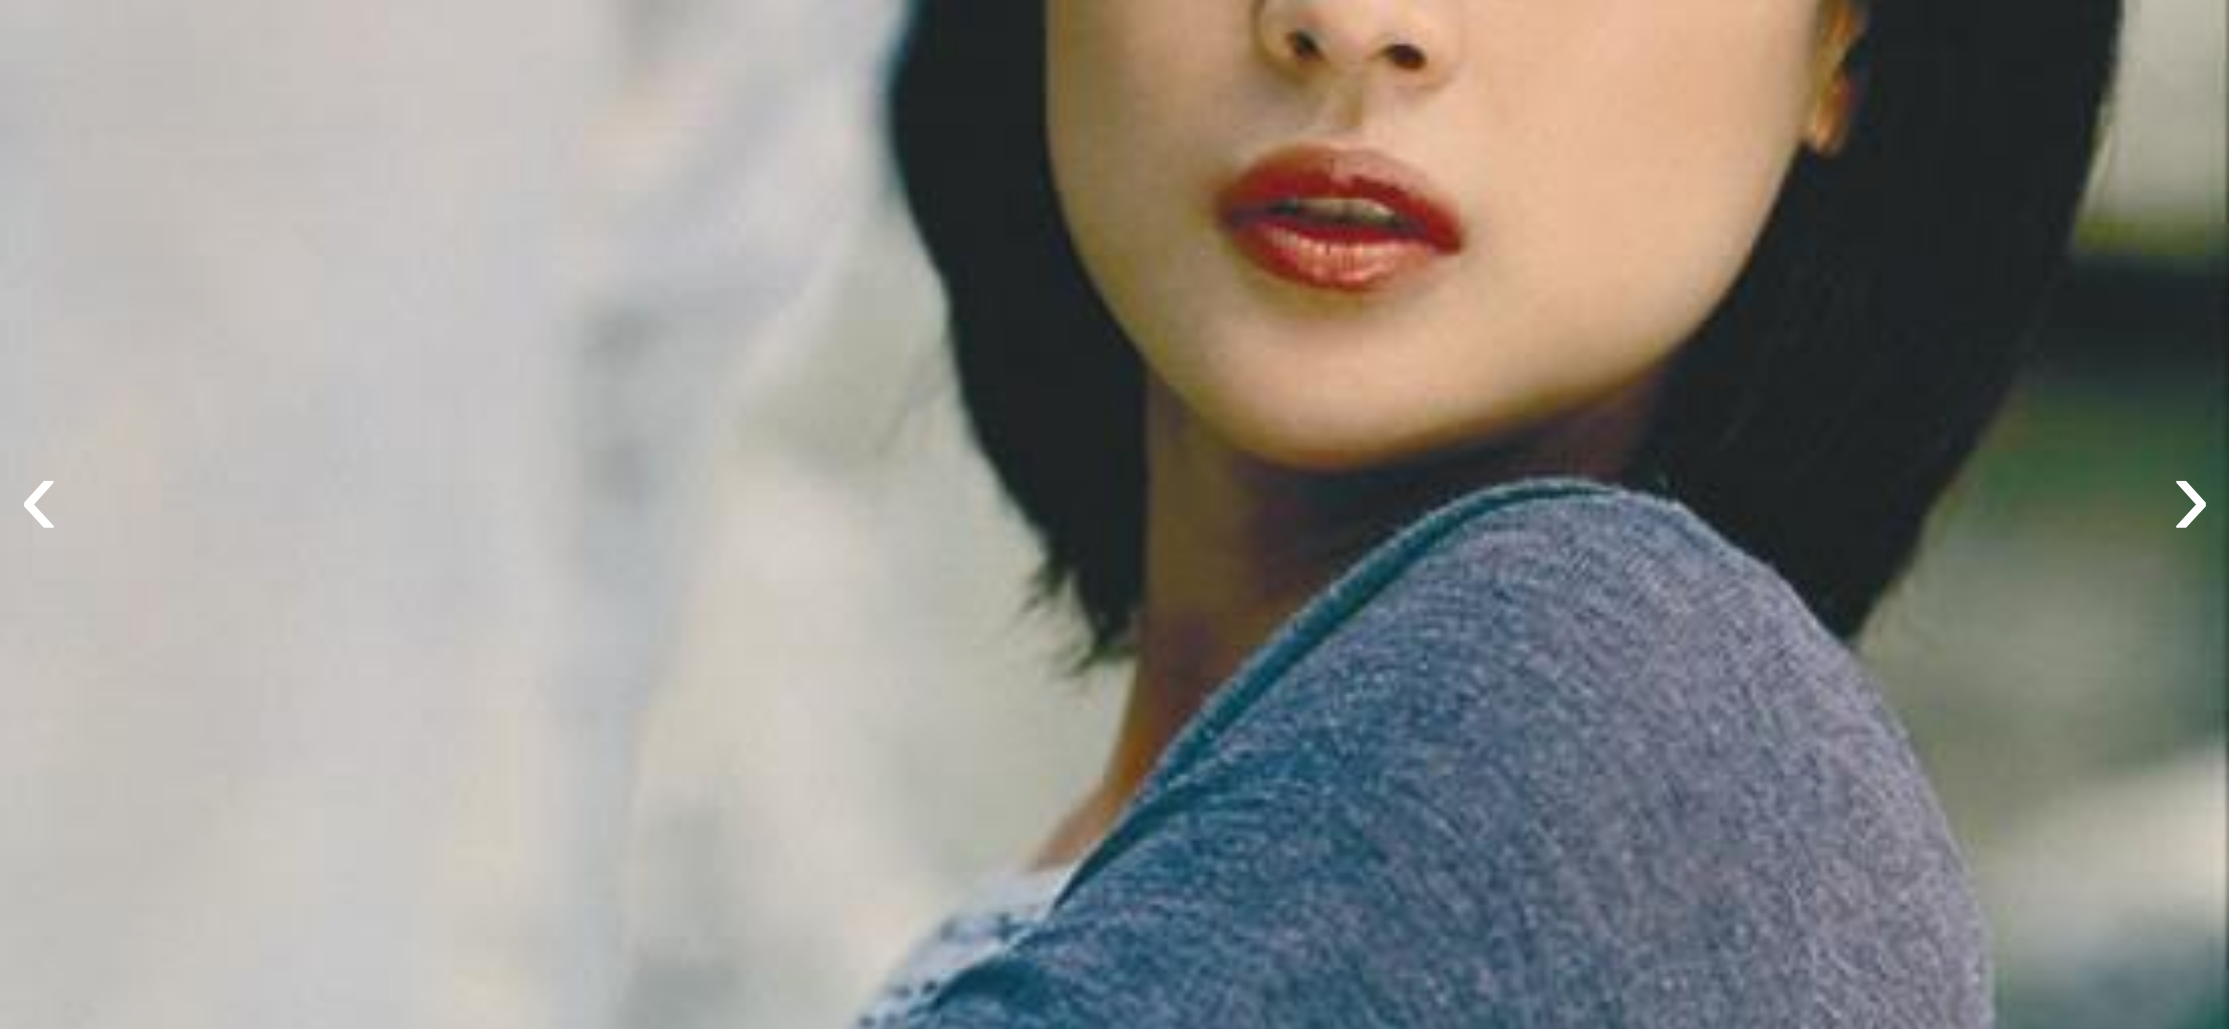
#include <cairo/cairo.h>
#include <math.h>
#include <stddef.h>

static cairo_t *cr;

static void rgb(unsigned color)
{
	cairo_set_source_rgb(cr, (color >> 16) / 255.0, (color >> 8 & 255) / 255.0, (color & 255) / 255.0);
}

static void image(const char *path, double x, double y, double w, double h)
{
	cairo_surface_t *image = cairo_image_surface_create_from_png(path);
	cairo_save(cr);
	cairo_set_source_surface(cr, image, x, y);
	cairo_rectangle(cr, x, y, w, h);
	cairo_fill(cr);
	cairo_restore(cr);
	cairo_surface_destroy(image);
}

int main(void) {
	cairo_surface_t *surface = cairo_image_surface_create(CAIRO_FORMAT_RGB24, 2229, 1029);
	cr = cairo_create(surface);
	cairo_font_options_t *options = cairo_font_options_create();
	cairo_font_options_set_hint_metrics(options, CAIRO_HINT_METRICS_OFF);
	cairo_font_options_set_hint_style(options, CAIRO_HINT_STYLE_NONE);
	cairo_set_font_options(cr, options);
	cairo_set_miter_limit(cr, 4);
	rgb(0xffffff);
	cairo_paint(cr);
	image("img/1.png", 0, 0, 2229, 1029);
	cairo_select_font_face(cr, "Liberation Sans", CAIRO_FONT_SLANT_NORMAL, CAIRO_FONT_WEIGHT_NORMAL);
	cairo_set_font_size(cr, 120);
	rgb(0xffffff);
	cairo_move_to(cr, 19, 536);
	cairo_show_text(cr, "‹");
	cairo_move_to(cr, 2171, 536);
	cairo_show_text(cr, "›");
	cairo_surface_write_to_png(surface, "page.png");
	cairo_font_options_destroy(options);
	cairo_destroy(cr);
	cairo_surface_destroy(surface);
	return 0;
}
